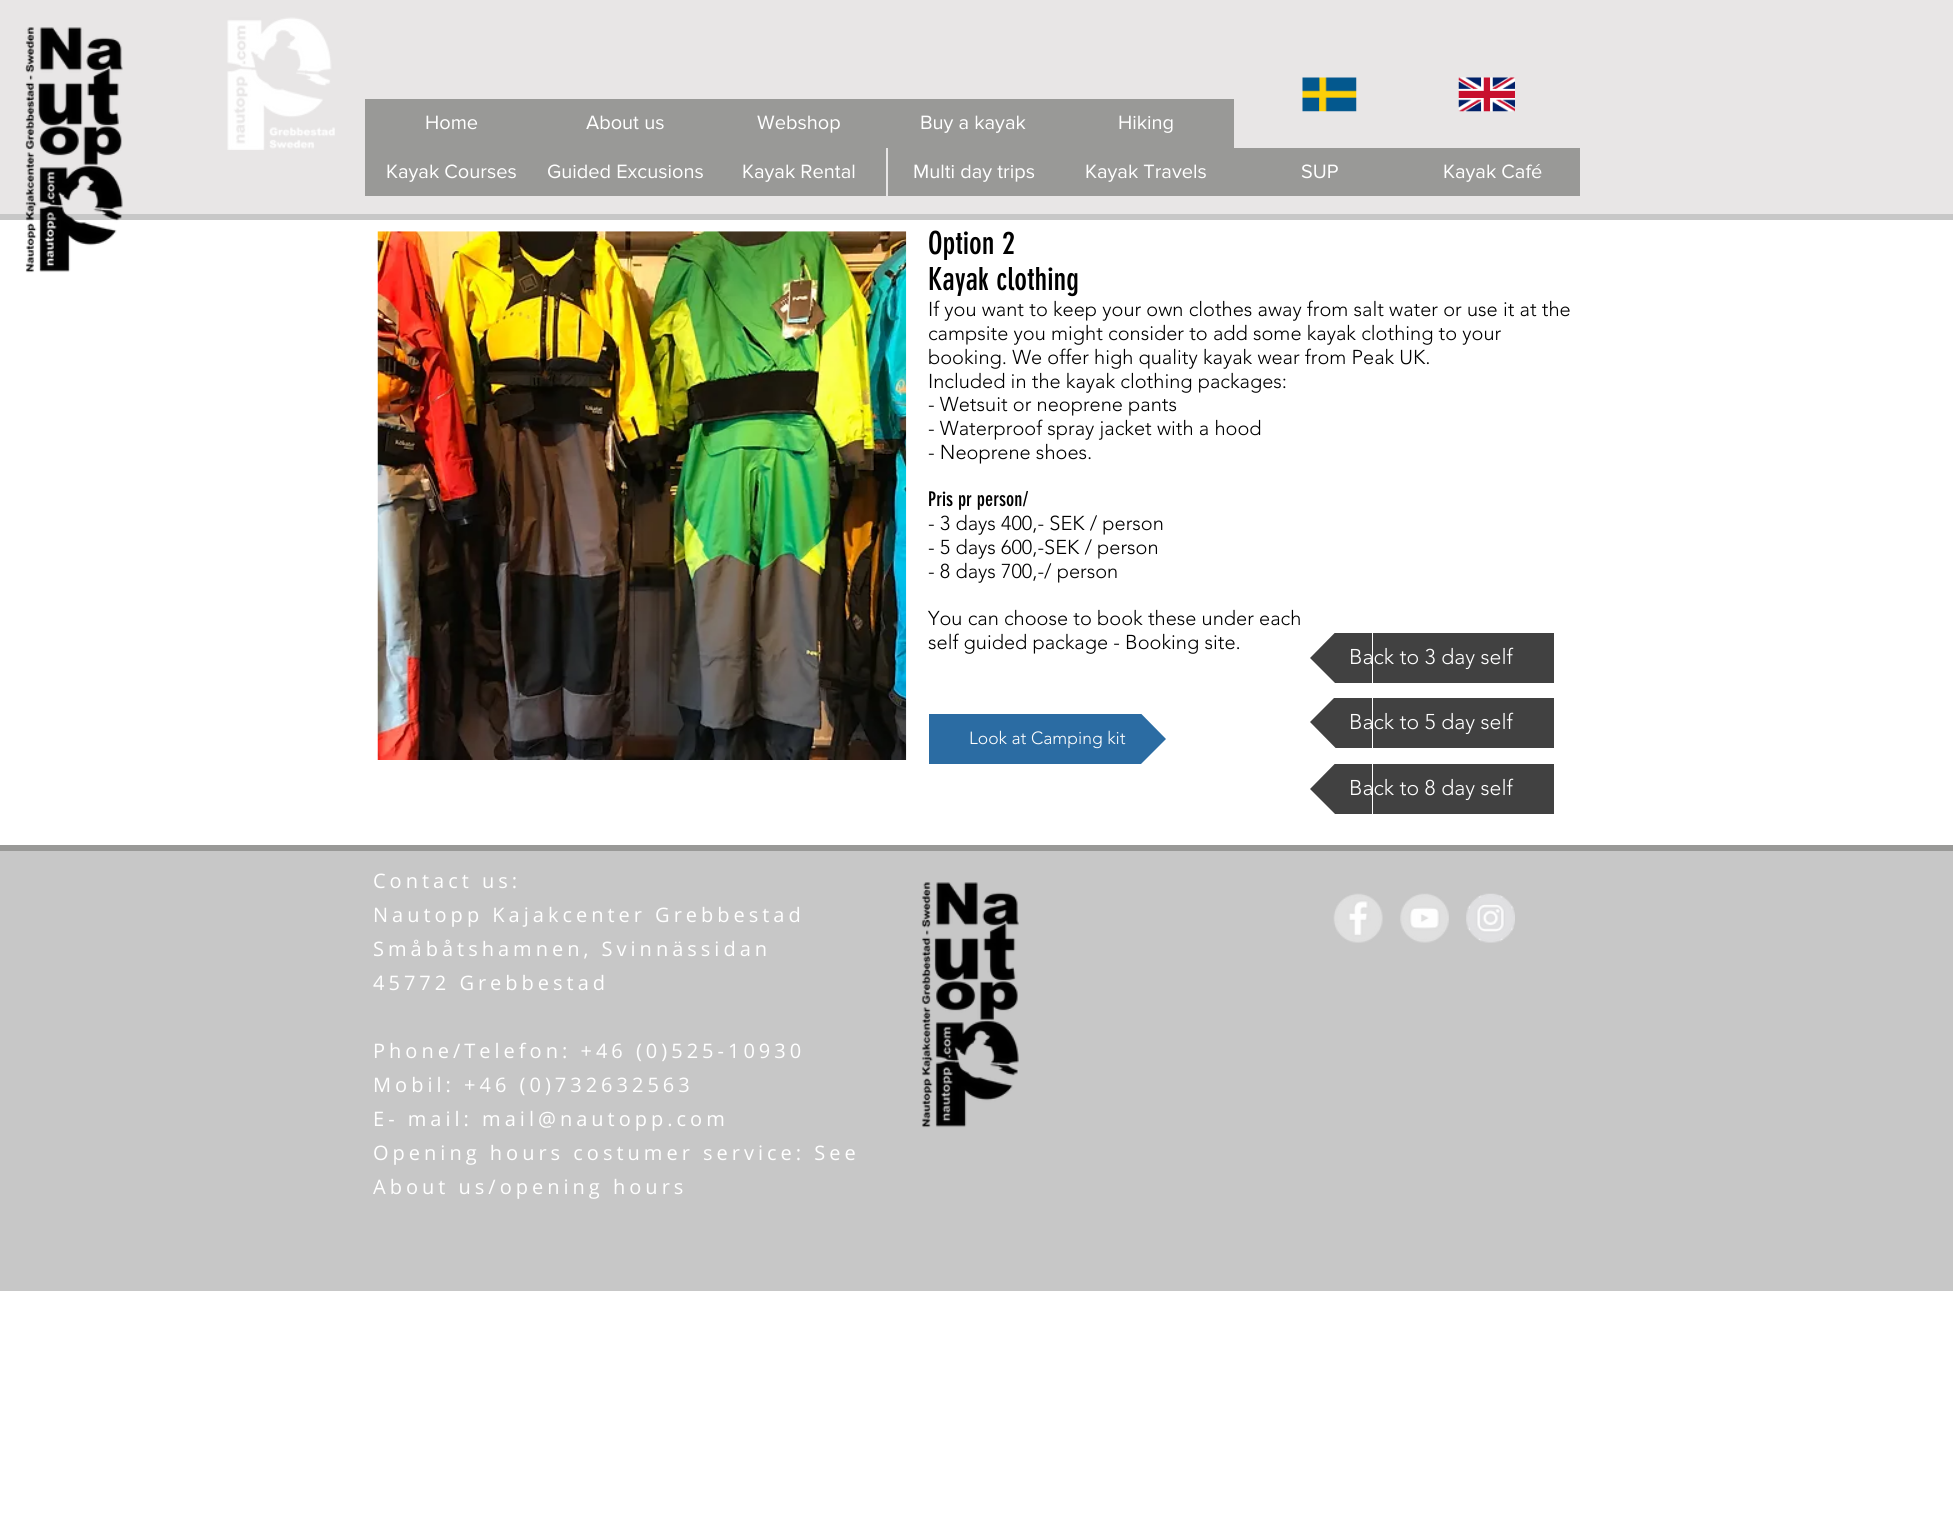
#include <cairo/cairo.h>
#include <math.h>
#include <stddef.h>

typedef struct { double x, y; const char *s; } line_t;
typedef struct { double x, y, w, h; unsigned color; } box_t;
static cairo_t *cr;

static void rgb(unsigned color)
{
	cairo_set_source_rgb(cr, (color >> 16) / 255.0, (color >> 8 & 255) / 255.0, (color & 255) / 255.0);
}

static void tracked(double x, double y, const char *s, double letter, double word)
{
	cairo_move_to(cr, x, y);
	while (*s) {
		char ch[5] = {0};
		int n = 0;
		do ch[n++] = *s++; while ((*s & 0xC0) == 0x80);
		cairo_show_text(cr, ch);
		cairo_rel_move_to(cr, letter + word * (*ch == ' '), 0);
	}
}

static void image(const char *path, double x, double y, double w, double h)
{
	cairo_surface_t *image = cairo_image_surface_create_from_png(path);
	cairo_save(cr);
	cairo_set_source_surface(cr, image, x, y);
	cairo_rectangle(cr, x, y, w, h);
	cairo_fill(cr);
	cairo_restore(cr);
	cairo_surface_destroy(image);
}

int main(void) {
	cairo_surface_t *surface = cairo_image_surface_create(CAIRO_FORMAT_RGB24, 1953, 1521);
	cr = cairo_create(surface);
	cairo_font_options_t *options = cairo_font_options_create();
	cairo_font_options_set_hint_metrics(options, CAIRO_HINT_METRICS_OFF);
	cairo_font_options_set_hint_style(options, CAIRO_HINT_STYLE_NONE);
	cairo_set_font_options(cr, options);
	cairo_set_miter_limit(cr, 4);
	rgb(0xffffff);
	cairo_paint(cr);
	rgb(0xe8e6e6);
	cairo_rectangle(cr, 0, 0, 1953, 214);
	cairo_fill(cr);
	rgb(0xc7c7c7);
	cairo_rectangle(cr, 0, 214, 1953, 6);
	cairo_fill(cr);
	image("img/1.png", 227, 17, 108, 133);
	image("img/2.png", 1302, 77, 55, 35);
	image("img/3.png", 1458, 77, 57, 35);
	image("img/4.png", 25, 27, 98, 246);
	{
		static const box_t items[] = {
			{365, 99, 869, 49, 0x999997},
			{365, 148, 521, 48, 0x999997},
			{888, 148, 692, 48, 0x999997},
		};
		for (size_t i = 0; i < sizeof items / sizeof *items; i++) {
			rgb(items[i].color);
			cairo_rectangle(cr, items[i].x, items[i].y, items[i].w, items[i].h);
			cairo_fill(cr);
		}
	}
	image("img/5.png", 377, 231, 530, 529);
	cairo_save(cr);
	cairo_rectangle(cr, 1310, 633, 244, 50);
	cairo_clip(cr);
	rgb(0x414141);
	cairo_new_path(cr);
	cairo_move_to(cr, 1372, 658);
	cairo_line_to(cr, 1310, 658);
	cairo_line_to(cr, 1372, 595);
	cairo_close_path(cr);
	cairo_move_to(cr, 1310, 658);
	cairo_line_to(cr, 1372, 658);
	cairo_line_to(cr, 1372, 720);
	cairo_close_path(cr);
	cairo_fill(cr);
	cairo_restore(cr);
	rgb(0x414141);
	cairo_rectangle(cr, 1373, 633, 181, 50);
	cairo_fill(cr);
	cairo_save(cr);
	cairo_rectangle(cr, 1310, 698, 244, 50);
	cairo_clip(cr);
	cairo_new_path(cr);
	cairo_move_to(cr, 1372, 722);
	cairo_line_to(cr, 1310, 722);
	cairo_line_to(cr, 1372, 660);
	cairo_close_path(cr);
	cairo_move_to(cr, 1310, 722);
	cairo_line_to(cr, 1372, 722);
	cairo_line_to(cr, 1372, 785);
	cairo_close_path(cr);
	cairo_fill(cr);
	cairo_restore(cr);
	cairo_rectangle(cr, 1373, 698, 181, 50);
	cairo_fill(cr);
	rgb(0x2b6ca3);
	cairo_rectangle(cr, 929, 714, 175, 50);
	cairo_fill(cr);
	cairo_save(cr);
	cairo_rectangle(cr, 929, 714, 237, 50);
	cairo_clip(cr);
	cairo_new_path(cr);
	cairo_move_to(cr, 1166, 739);
	cairo_line_to(cr, 1104, 739);
	cairo_line_to(cr, 1104, 676);
	cairo_close_path(cr);
	cairo_move_to(cr, 1104, 739);
	cairo_line_to(cr, 1166, 739);
	cairo_line_to(cr, 1104, 801);
	cairo_close_path(cr);
	cairo_fill(cr);
	cairo_restore(cr);
	cairo_save(cr);
	cairo_rectangle(cr, 1310, 764, 244, 50);
	cairo_clip(cr);
	rgb(0x414141);
	cairo_new_path(cr);
	cairo_move_to(cr, 1372, 789);
	cairo_line_to(cr, 1310, 789);
	cairo_line_to(cr, 1372, 726);
	cairo_close_path(cr);
	cairo_move_to(cr, 1310, 789);
	cairo_line_to(cr, 1372, 789);
	cairo_line_to(cr, 1372, 851);
	cairo_close_path(cr);
	cairo_fill(cr);
	cairo_restore(cr);
	{
		static const box_t items[] = {
			{1373, 764, 181, 50, 0x414141},
			{0, 851, 1953, 440, 0xc7c7c7},
			{0, 845, 1953, 6, 0x999997},
		};
		for (size_t i = 0; i < sizeof items / sizeof *items; i++) {
			rgb(items[i].color);
			cairo_rectangle(cr, items[i].x, items[i].y, items[i].w, items[i].h);
			cairo_fill(cr);
		}
	}
	image("img/6.png", 921, 882, 98, 246);
	image("img/7.png", 1333, 893, 50, 50);
	image("img/8.png", 1400, 893, 49, 50);
	image("img/9.png", 1466, 893, 49, 50);
	cairo_select_font_face(cr, "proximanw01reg", CAIRO_FONT_SLANT_NORMAL, CAIRO_FONT_WEIGHT_NORMAL);
	cairo_set_font_size(cr, 20);
	rgb(0xffffff);
	{
		static const line_t items[] = {
			{425, 129, "Home"},
			{586, 129, "About us"},
			{757, 129, "Webshop"},
			{920, 129, "Buy a kayak"},
			{1118, 129, "Hiking"},
			{386, 178, "Kayak Courses"},
			{547, 178, "Guided Excusions"},
			{742, 178, "Kayak Rental"},
			{913, 178, "Multi day trips"},
			{1085, 178, "Kayak Travels"},
			{1301, 178, "SUP"},
			{1443, 178, "Kayak Café"},
		};
		for (size_t i = 0; i < sizeof items / sizeof *items; i++) {
			cairo_move_to(cr, items[i].x, items[i].y);
			cairo_show_text(cr, items[i].s);
		}
	}
	cairo_select_font_face(cr, "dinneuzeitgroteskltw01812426", CAIRO_FONT_SLANT_NORMAL, CAIRO_FONT_WEIGHT_NORMAL);
	cairo_set_font_size(cr, 31.25);
	rgb(0x000000);
	cairo_move_to(cr, 928, 254);
	cairo_show_text(cr, "Option 2");
	cairo_move_to(cr, 928, 290);
	cairo_show_text(cr, "Kayak clothing");
	cairo_select_font_face(cr, "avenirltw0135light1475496 Light", CAIRO_FONT_SLANT_NORMAL, CAIRO_FONT_WEIGHT_NORMAL);
	cairo_set_font_size(cr, 20);
	{
		static const line_t items[] = {
			{928, 316, "If you want to keep your own clothes away from salt water or use it at the"},
			{928, 340, "campsite you might consider to add some kayak clothing to your"},
			{928, 364, "booking. We offer high quality kayak wear from Peak UK."},
			{928, 388, "Included in the kayak clothing packages:"},
			{928, 411, "- Wetsuit or neoprene pants"},
			{928, 435, "- Waterproof spray jacket with a hood"},
			{928, 459, "- Neoprene shoes."},
		};
		for (size_t i = 0; i < sizeof items / sizeof *items; i++) {
			cairo_move_to(cr, items[i].x, items[i].y);
			cairo_show_text(cr, items[i].s);
		}
	}
	cairo_select_font_face(cr, "dinneuzeitgroteskltw01812426", CAIRO_FONT_SLANT_NORMAL, CAIRO_FONT_WEIGHT_NORMAL);
	cairo_move_to(cr, 928, 506);
	cairo_show_text(cr, "Pris pr person/");
	cairo_select_font_face(cr, "avenirltw0135light1475496 Light", CAIRO_FONT_SLANT_NORMAL, CAIRO_FONT_WEIGHT_NORMAL);
	{
		static const line_t items[] = {
			{928, 530, "- 3 days 400,- SEK / person"},
			{928, 554, "- 5 days 600,-SEK / person"},
			{928, 578, "- 8 days 700,-/ person"},
			{928, 625, "You can choose to book these under each"},
			{928, 649, "self guided package - Booking site."},
		};
		for (size_t i = 0; i < sizeof items / sizeof *items; i++) {
			cairo_move_to(cr, items[i].x, items[i].y);
			cairo_show_text(cr, items[i].s);
		}
	}
	cairo_set_font_size(cr, 21.25);
	rgb(0xffffff);
	cairo_move_to(cr, 1349, 664);
	cairo_show_text(cr, "Back to 3 day self");
	cairo_move_to(cr, 1349, 729);
	cairo_show_text(cr, "Back to 5 day self");
	cairo_set_font_size(cr, 17.5);
	cairo_move_to(cr, 969, 744);
	cairo_show_text(cr, "Look at Camping kit");
	cairo_set_font_size(cr, 21.25);
	cairo_move_to(cr, 1349, 795);
	cairo_show_text(cr, "Back to 8 day self");
	cairo_select_font_face(cr, "Open Sans", CAIRO_FONT_SLANT_NORMAL, CAIRO_FONT_WEIGHT_NORMAL);
	cairo_set_font_size(cr, 20);
	{
		static const line_t items[] = {
			{373, 888, "Contact us:"},
			{373, 922, "Nautopp Kajakcenter Grebbestad"},
			{373, 956, "Småbåtshamnen, Svinnässidan"},
			{373, 990, "45772 Grebbestad"},
			{373, 1058, "Phone/Telefon: +46 (0)525-10930"},
			{373, 1092, "Mobil: +46 (0)732632563"},
			{373, 1126, "E- mail: mail@nautopp.com"},
			{373, 1160, "Opening hours costumer service: See"},
			{373, 1194, "About us/opening hours"},
		};
		for (size_t i = 0; i < sizeof items / sizeof *items; i++) {
			tracked(items[i].x, items[i].y, items[i].s, 4, 0);
		}
	}
	cairo_surface_write_to_png(surface, "page.png");
	cairo_font_options_destroy(options);
	cairo_destroy(cr);
	cairo_surface_destroy(surface);
	return 0;
}
